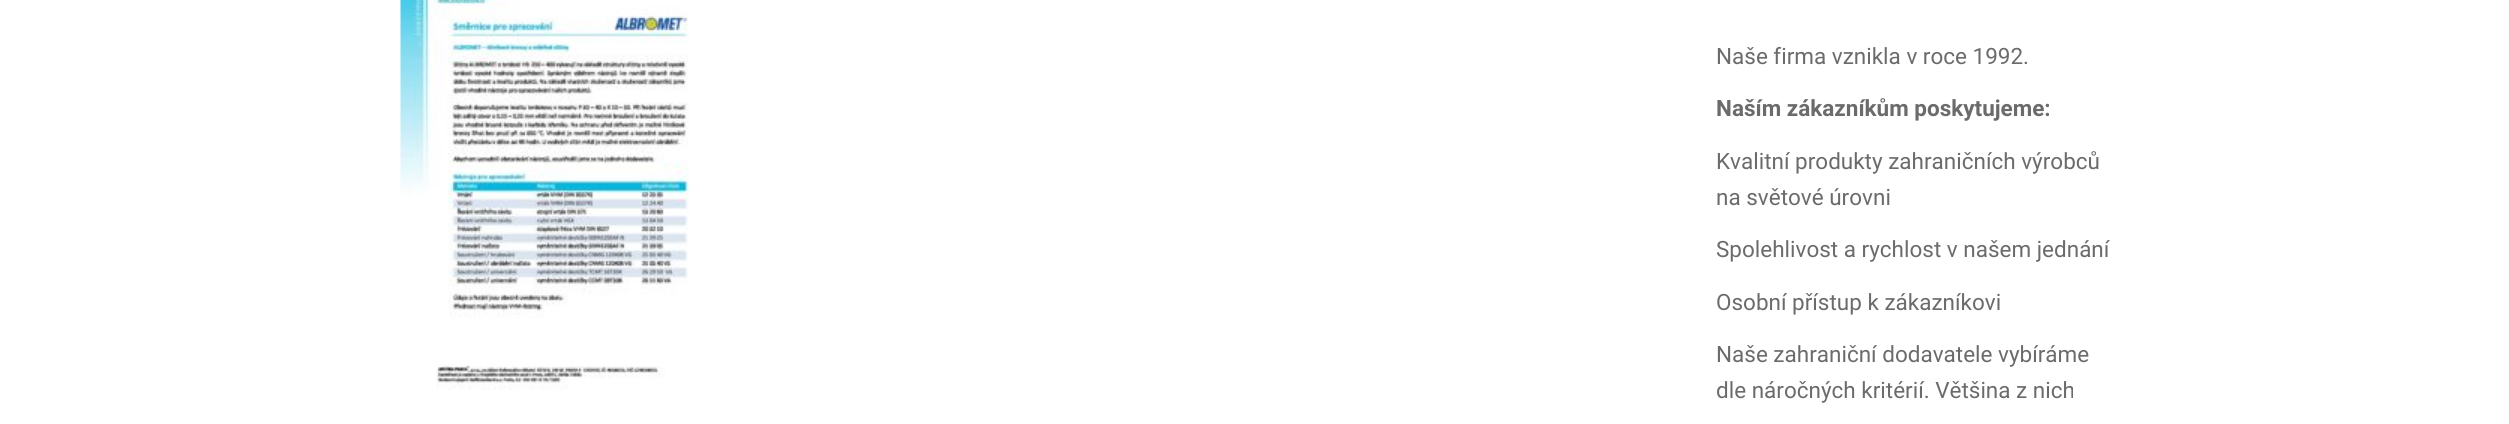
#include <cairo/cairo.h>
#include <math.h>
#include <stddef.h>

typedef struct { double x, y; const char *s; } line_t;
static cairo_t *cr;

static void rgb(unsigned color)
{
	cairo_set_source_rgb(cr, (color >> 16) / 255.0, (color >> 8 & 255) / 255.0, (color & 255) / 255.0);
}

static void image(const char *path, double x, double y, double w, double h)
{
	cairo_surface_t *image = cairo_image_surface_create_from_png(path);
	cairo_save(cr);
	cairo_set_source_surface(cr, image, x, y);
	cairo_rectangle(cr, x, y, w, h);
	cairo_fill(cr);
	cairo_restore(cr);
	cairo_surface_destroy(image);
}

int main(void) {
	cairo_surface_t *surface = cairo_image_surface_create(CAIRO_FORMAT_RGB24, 2509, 424);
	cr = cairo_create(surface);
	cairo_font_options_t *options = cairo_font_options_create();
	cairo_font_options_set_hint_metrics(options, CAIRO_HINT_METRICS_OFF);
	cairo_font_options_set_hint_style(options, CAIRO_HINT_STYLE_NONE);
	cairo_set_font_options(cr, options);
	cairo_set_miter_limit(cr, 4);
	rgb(0xffffff);
	cairo_paint(cr);
	image("img/1.png", 400, 0, 290, 390);
	cairo_select_font_face(cr, "Roboto", CAIRO_FONT_SLANT_NORMAL, CAIRO_FONT_WEIGHT_NORMAL);
	cairo_set_font_size(cr, 22.5);
	rgb(0x6b6b6b);
	cairo_move_to(cr, 1716, 64);
	cairo_show_text(cr, "Naše firma vznikla v roce 1992.");
	cairo_select_font_face(cr, "Roboto", CAIRO_FONT_SLANT_NORMAL, CAIRO_FONT_WEIGHT_BOLD);
	cairo_move_to(cr, 1716, 116);
	cairo_show_text(cr, "Naším zákazníkům poskytujeme:");
	cairo_select_font_face(cr, "Roboto", CAIRO_FONT_SLANT_NORMAL, CAIRO_FONT_WEIGHT_NORMAL);
	{
		static const line_t items[] = {
			{1716, 169, "Kvalitní produkty zahraničních výrobců"},
			{1716, 205, "na světové úrovni"},
			{1716, 257, "Spolehlivost a rychlost v našem jednání"},
			{1716, 310, "Osobní přístup k zákazníkovi"},
			{1716, 362, "Naše zahraniční dodavatele vybíráme"},
			{1716, 398, "dle náročných kritérií. Většina z nich"},
		};
		for (size_t i = 0; i < sizeof items / sizeof *items; i++) {
			cairo_move_to(cr, items[i].x, items[i].y);
			cairo_show_text(cr, items[i].s);
		}
	}
	cairo_surface_write_to_png(surface, "page.png");
	cairo_font_options_destroy(options);
	cairo_destroy(cr);
	cairo_surface_destroy(surface);
	return 0;
}
